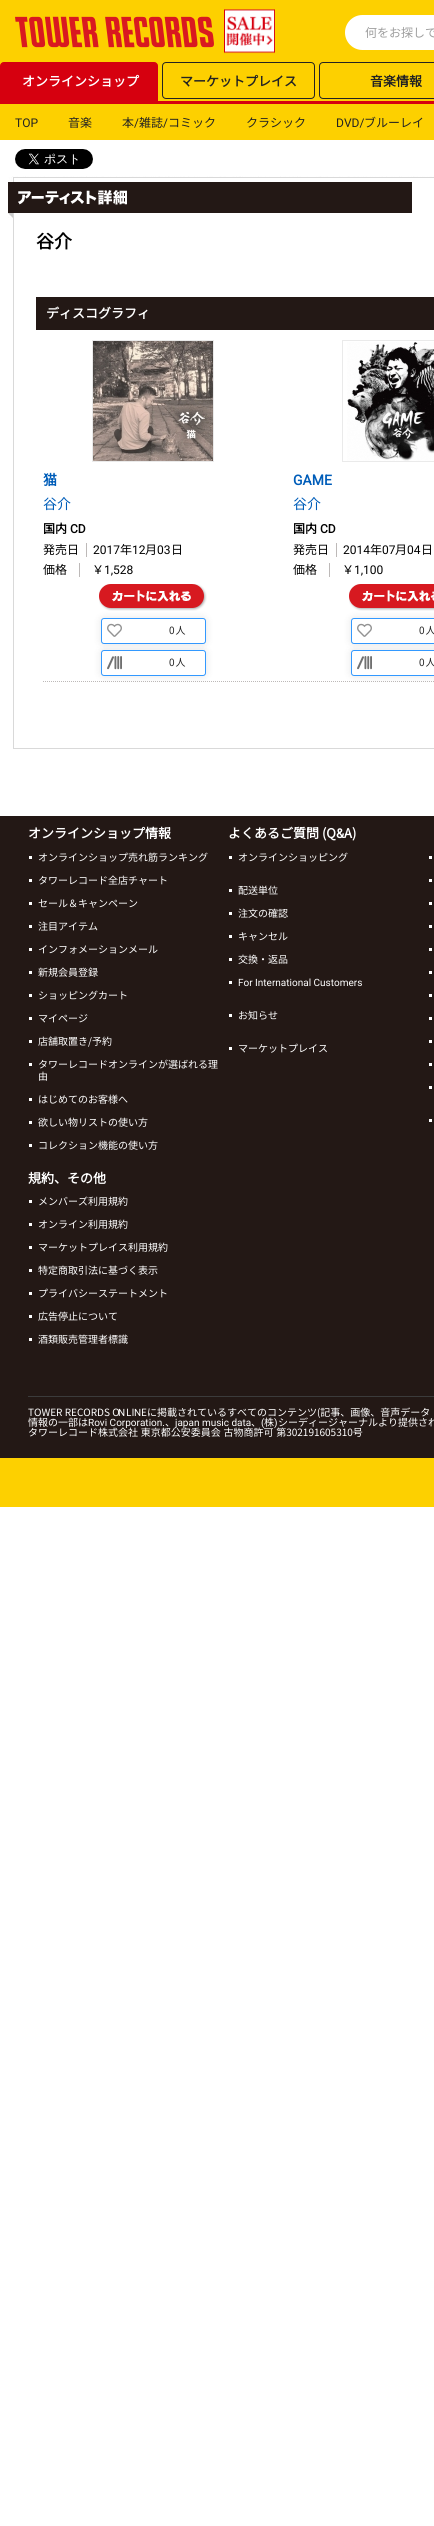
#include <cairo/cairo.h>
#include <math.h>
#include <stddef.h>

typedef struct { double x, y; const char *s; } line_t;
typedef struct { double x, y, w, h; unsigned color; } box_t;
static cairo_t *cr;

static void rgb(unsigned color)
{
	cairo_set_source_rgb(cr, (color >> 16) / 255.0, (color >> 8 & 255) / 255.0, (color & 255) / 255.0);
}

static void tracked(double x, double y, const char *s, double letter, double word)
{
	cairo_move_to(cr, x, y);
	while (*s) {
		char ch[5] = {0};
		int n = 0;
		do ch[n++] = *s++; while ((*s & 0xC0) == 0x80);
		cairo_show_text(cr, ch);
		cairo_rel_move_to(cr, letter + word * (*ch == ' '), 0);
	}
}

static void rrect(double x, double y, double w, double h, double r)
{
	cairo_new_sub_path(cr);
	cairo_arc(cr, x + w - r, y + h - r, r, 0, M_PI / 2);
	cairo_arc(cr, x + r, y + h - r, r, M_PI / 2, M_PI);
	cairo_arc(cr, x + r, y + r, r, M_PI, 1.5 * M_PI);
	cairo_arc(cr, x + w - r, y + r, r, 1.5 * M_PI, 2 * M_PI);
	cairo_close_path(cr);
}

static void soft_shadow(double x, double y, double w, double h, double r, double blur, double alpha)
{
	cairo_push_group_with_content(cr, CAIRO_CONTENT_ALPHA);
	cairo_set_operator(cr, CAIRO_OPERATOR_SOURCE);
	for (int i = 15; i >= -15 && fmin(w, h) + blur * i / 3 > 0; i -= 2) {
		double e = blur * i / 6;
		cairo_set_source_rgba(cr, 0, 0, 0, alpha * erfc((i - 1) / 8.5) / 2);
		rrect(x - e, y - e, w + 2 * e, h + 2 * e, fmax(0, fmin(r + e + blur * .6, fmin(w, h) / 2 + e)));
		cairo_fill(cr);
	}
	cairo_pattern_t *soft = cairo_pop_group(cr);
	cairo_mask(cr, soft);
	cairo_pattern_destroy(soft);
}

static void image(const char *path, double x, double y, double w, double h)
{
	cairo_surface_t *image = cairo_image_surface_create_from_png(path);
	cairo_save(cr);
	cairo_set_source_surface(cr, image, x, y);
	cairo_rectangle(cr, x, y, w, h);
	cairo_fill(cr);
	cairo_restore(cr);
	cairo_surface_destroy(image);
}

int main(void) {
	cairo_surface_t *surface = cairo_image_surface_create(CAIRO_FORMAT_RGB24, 434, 2526);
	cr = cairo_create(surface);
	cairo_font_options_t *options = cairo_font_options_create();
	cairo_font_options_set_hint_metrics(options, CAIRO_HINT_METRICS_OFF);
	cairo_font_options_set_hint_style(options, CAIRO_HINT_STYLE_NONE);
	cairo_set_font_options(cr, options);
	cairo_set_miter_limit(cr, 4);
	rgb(0xffffff);
	cairo_paint(cr);
	rgb(0xfdd000);
	cairo_rectangle(cr, 0, 0, 434, 140);
	cairo_fill(cr);
	image("img/1.png", 15, 16, 199, 32);
	image("img/2.png", 224, 9, 51, 45);
	rgb(0xffffff);
	rrect(345, 15, 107, 35, 17.5);
	cairo_fill(cr);
	rgb(0xd6000f);
	cairo_rectangle(cr, 0, 101, 434, 3);
	cairo_fill(cr);
	cairo_new_path(cr);
	cairo_move_to(cr, 4, 62.5);
	cairo_line_to(cr, 154, 62.5);
	cairo_curve_to(cr, 156, 62.5, 157.5, 64, 157.5, 66);
	cairo_line_to(cr, 157.5, 102.5);
	cairo_line_to(cr, 0.5, 102.5);
	cairo_line_to(cr, 0.5, 66);
	cairo_curve_to(cr, 0.5, 64, 2, 62.5, 4, 62.5);
	cairo_close_path(cr);
	cairo_fill_preserve(cr);
	cairo_set_line_width(cr, 1);
	cairo_stroke(cr);
	rrect(162.5, 62.5, 152, 36, 3.5);
	rgb(0x232323);
	cairo_stroke(cr);
	rrect(319.5, 62.5, 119, 36, 3.5);
	cairo_stroke(cr);
	image("img/3.png", 15, 149, 78, 20);
	rgb(0xd9d9d9);
	cairo_rectangle(cr, 13, 218, 1, 531);
	cairo_fill(cr);
	cairo_rectangle(cr, 14, 748, 420, 1);
	cairo_fill(cr);
	image("img/4.png", 8, 176, 426, 42);
	rgb(0x231815);
	cairo_rectangle(cr, 36, 297, 398, 33);
	cairo_fill(cr);
	cairo_new_path(cr);
	cairo_move_to(cr, 43, 681.5);
	cairo_line_to(cr, 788, 681.5);
	rgb(0xbdb9b8);
	cairo_set_dash(cr, (double[]){1, 1}, 2, 0);
	cairo_stroke(cr);
	cairo_rectangle(cr, 92.5, 340.5, 121, 121);
	rgb(0xeaeaea);
	cairo_set_dash(cr, NULL, 0, 0);
	cairo_stroke(cr);
	image("img/5.png", 93, 341, 120, 120);
	rgb(0xbdb9b8);
	cairo_rectangle(cr, 86, 543, 1, 14);
	cairo_fill(cr);
	cairo_rectangle(cr, 79, 563, 1, 14);
	cairo_fill(cr);
	image("img/6.png", 99, 584, 108, 27);
	rgb(0x000000);
	soft_shadow(101, 618, 105, 26, 3, 4, 0.1);
	rgb(0xffffff);
	rrect(101.5, 618.5, 104, 25, 2.5);
	cairo_fill_preserve(cr);
	rgb(0x3399ff);
	cairo_stroke(cr);
	image("img/7.png", 107, 623, 15, 14);
	rgb(0x000000);
	soft_shadow(101, 650, 105, 26, 3, 4, 0.1);
	rgb(0xffffff);
	rrect(101.5, 650.5, 104, 25, 2.5);
	cairo_fill_preserve(cr);
	rgb(0x3399ff);
	cairo_stroke(cr);
	image("img/8.png", 107, 656, 15, 14);
	cairo_rectangle(cr, 342.5, 340.5, 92, 121);
	rgb(0xeaeaea);
	cairo_stroke(cr);
	image("img/9.png", 347, 342, 87, 119);
	rgb(0xbdb9b8);
	cairo_rectangle(cr, 336, 543, 1, 14);
	cairo_fill(cr);
	cairo_rectangle(cr, 329, 563, 1, 14);
	cairo_fill(cr);
	image("img/10.png", 349, 584, 85, 27);
	rgb(0x000000);
	soft_shadow(351, 618, 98, 26, 3, 4, 0.1);
	rgb(0xffffff);
	rrect(351.5, 618.5, 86, 25, 2.5);
	cairo_fill_preserve(cr);
	rgb(0x3399ff);
	cairo_stroke(cr);
	image("img/7.png", 357, 623, 15, 14);
	rgb(0x000000);
	soft_shadow(351, 650, 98, 26, 3, 4, 0.1);
	rgb(0xffffff);
	rrect(351.5, 650.5, 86, 25, 2.5);
	cairo_fill_preserve(cr);
	rgb(0x3399ff);
	cairo_stroke(cr);
	image("img/8.png", 357, 656, 15, 14);
	{
		static const box_t items[] = {
			{0, 816, 434, 642, 0x231815},
			{29, 856, 3, 3, 0xffffff},
			{29, 879, 3, 3, 0xffffff},
			{29, 902, 3, 3, 0xffffff},
			{29, 925, 3, 3, 0xffffff},
			{29, 948, 3, 3, 0xffffff},
			{29, 971, 3, 3, 0xffffff},
			{29, 994, 3, 3, 0xffffff},
			{29, 1017, 3, 3, 0xffffff},
			{29, 1040, 3, 3, 0xffffff},
			{29, 1063, 3, 3, 0xffffff},
			{29, 1098, 3, 3, 0xffffff},
			{29, 1121, 3, 3, 0xffffff},
			{29, 1144, 3, 3, 0xffffff},
			{29, 1200, 3, 3, 0xffffff},
			{29, 1223, 3, 3, 0xffffff},
			{29, 1246, 3, 3, 0xffffff},
			{29, 1269, 3, 3, 0xffffff},
			{29, 1292, 3, 3, 0xffffff},
			{29, 1315, 3, 3, 0xffffff},
			{29, 1338, 3, 3, 0xffffff},
			{229, 856, 3, 3, 0xffffff},
			{229, 889, 3, 3, 0xffffff},
			{229, 912, 3, 3, 0xffffff},
			{229, 935, 3, 3, 0xffffff},
			{229, 958, 3, 3, 0xffffff},
			{229, 981, 3, 3, 0xffffff},
			{229, 1014, 3, 3, 0xffffff},
			{229, 1047, 3, 3, 0xffffff},
			{429, 856, 3, 3, 0xffffff},
			{429, 879, 3, 3, 0xffffff},
			{429, 902, 3, 3, 0xffffff},
			{429, 925, 3, 3, 0xffffff},
			{429, 948, 3, 3, 0xffffff},
			{429, 971, 3, 3, 0xffffff},
			{429, 994, 3, 3, 0xffffff},
			{429, 1017, 3, 3, 0xffffff},
			{429, 1040, 3, 3, 0xffffff},
			{429, 1063, 3, 3, 0xffffff},
			{429, 1086, 3, 3, 0xffffff},
			{429, 1119, 3, 3, 0xffffff},
			{28, 1396, 406, 1, 0x3b3b3b},
			{0, 1458, 434, 49, 0xfdd000},
		};
		for (size_t i = 0; i < sizeof items / sizeof *items; i++) {
			rgb(items[i].color);
			cairo_rectangle(cr, items[i].x, items[i].y, items[i].w, items[i].h);
			cairo_fill(cr);
		}
	}
	cairo_select_font_face(cr, "Noto Sans JP Thin", CAIRO_FONT_SLANT_NORMAL, CAIRO_FONT_WEIGHT_NORMAL);
	cairo_set_font_size(cr, 12);
	rgb(0x9e9e9e);
	cairo_move_to(cr, 365, 37);
	cairo_show_text(cr, "何をお探しで");
	cairo_select_font_face(cr, "Noto Sans JP", CAIRO_FONT_SLANT_NORMAL, CAIRO_FONT_WEIGHT_BOLD);
	cairo_set_font_size(cr, 13);
	rgb(0xffffff);
	cairo_move_to(cr, 22, 86);
	cairo_show_text(cr, "オンラインショップ");
	rgb(0x232323);
	cairo_move_to(cr, 180, 86);
	cairo_show_text(cr, "マーケットプレイス");
	cairo_move_to(cr, 370, 86);
	cairo_show_text(cr, "音楽情報");
	cairo_select_font_face(cr, "Roboto", CAIRO_FONT_SLANT_NORMAL, CAIRO_FONT_WEIGHT_NORMAL);
	cairo_set_font_size(cr, 12);
	cairo_move_to(cr, 15, 127);
	cairo_show_text(cr, "TOP");
	cairo_select_font_face(cr, "Noto Sans JP Thin", CAIRO_FONT_SLANT_NORMAL, CAIRO_FONT_WEIGHT_NORMAL);
	cairo_move_to(cr, 68, 127);
	cairo_show_text(cr, "音楽");
	cairo_move_to(cr, 122, 127);
	cairo_show_text(cr, "本");
	cairo_select_font_face(cr, "Roboto", CAIRO_FONT_SLANT_NORMAL, CAIRO_FONT_WEIGHT_NORMAL);
	cairo_move_to(cr, 134, 127);
	cairo_show_text(cr, "/");
	cairo_select_font_face(cr, "Noto Sans JP Thin", CAIRO_FONT_SLANT_NORMAL, CAIRO_FONT_WEIGHT_NORMAL);
	cairo_move_to(cr, 139, 127);
	cairo_show_text(cr, "雑誌");
	cairo_select_font_face(cr, "Roboto", CAIRO_FONT_SLANT_NORMAL, CAIRO_FONT_WEIGHT_NORMAL);
	cairo_move_to(cr, 163, 127);
	cairo_show_text(cr, "/");
	cairo_select_font_face(cr, "Noto Sans JP Thin", CAIRO_FONT_SLANT_NORMAL, CAIRO_FONT_WEIGHT_NORMAL);
	cairo_move_to(cr, 168, 127);
	cairo_show_text(cr, "コミック");
	cairo_move_to(cr, 246, 127);
	cairo_show_text(cr, "クラシック");
	cairo_select_font_face(cr, "Roboto", CAIRO_FONT_SLANT_NORMAL, CAIRO_FONT_WEIGHT_NORMAL);
	cairo_move_to(cr, 336, 127);
	cairo_show_text(cr, "DVD/");
	cairo_select_font_face(cr, "Noto Sans JP Thin", CAIRO_FONT_SLANT_NORMAL, CAIRO_FONT_WEIGHT_NORMAL);
	cairo_move_to(cr, 364, 127);
	cairo_show_text(cr, "ブルーレイ");
	cairo_select_font_face(cr, "Noto Sans JP", CAIRO_FONT_SLANT_NORMAL, CAIRO_FONT_WEIGHT_BOLD);
	cairo_set_font_size(cr, 18);
	rgb(0x000000);
	cairo_move_to(cr, 36, 248);
	cairo_show_text(cr, "谷介");
	cairo_set_font_size(cr, 13);
	rgb(0xffffff);
	cairo_move_to(cr, 46, 318);
	cairo_show_text(cr, "ディスコグラフィ");
	cairo_set_font_size(cr, 14);
	rgb(0x005db9);
	cairo_move_to(cr, 43, 485);
	cairo_show_text(cr, "猫");
	cairo_select_font_face(cr, "Noto Sans JP Thin", CAIRO_FONT_SLANT_NORMAL, CAIRO_FONT_WEIGHT_NORMAL);
	cairo_move_to(cr, 43, 509);
	cairo_show_text(cr, "谷介");
	cairo_select_font_face(cr, "Noto Sans JP", CAIRO_FONT_SLANT_NORMAL, CAIRO_FONT_WEIGHT_BOLD);
	cairo_set_font_size(cr, 12);
	rgb(0x000000);
	cairo_move_to(cr, 43, 533);
	cairo_show_text(cr, "国内");
	cairo_select_font_face(cr, "Roboto", CAIRO_FONT_SLANT_NORMAL, CAIRO_FONT_WEIGHT_BOLD);
	cairo_move_to(cr, 70, 533);
	cairo_show_text(cr, "CD");
	cairo_select_font_face(cr, "Noto Sans JP Thin", CAIRO_FONT_SLANT_NORMAL, CAIRO_FONT_WEIGHT_NORMAL);
	cairo_move_to(cr, 43, 554);
	cairo_show_text(cr, "発売日");
	cairo_select_font_face(cr, "Roboto", CAIRO_FONT_SLANT_NORMAL, CAIRO_FONT_WEIGHT_NORMAL);
	cairo_move_to(cr, 93, 554);
	cairo_show_text(cr, "2017");
	cairo_select_font_face(cr, "Noto Sans JP Thin", CAIRO_FONT_SLANT_NORMAL, CAIRO_FONT_WEIGHT_NORMAL);
	cairo_move_to(cr, 120, 554);
	cairo_show_text(cr, "年");
	cairo_select_font_face(cr, "Roboto", CAIRO_FONT_SLANT_NORMAL, CAIRO_FONT_WEIGHT_NORMAL);
	cairo_move_to(cr, 132, 554);
	cairo_show_text(cr, "12");
	cairo_select_font_face(cr, "Noto Sans JP Thin", CAIRO_FONT_SLANT_NORMAL, CAIRO_FONT_WEIGHT_NORMAL);
	cairo_move_to(cr, 145, 554);
	cairo_show_text(cr, "月");
	cairo_select_font_face(cr, "Roboto", CAIRO_FONT_SLANT_NORMAL, CAIRO_FONT_WEIGHT_NORMAL);
	cairo_move_to(cr, 157, 554);
	cairo_show_text(cr, "03");
	cairo_select_font_face(cr, "Noto Sans JP Thin", CAIRO_FONT_SLANT_NORMAL, CAIRO_FONT_WEIGHT_NORMAL);
	{
		static const line_t items[] = {
			{171, 554, "日"},
			{43, 574, "価格"},
			{92, 574, "￥"},
		};
		for (size_t i = 0; i < sizeof items / sizeof *items; i++) {
			cairo_move_to(cr, items[i].x, items[i].y);
			cairo_show_text(cr, items[i].s);
		}
	}
	cairo_select_font_face(cr, "Roboto", CAIRO_FONT_SLANT_NORMAL, CAIRO_FONT_WEIGHT_NORMAL);
	cairo_move_to(cr, 104, 574);
	cairo_show_text(cr, "1,528");
	cairo_select_font_face(cr, "Noto Sans JP Thin", CAIRO_FONT_SLANT_NORMAL, CAIRO_FONT_WEIGHT_NORMAL);
	cairo_set_font_size(cr, 10);
	rgb(0x232323);
	tracked(169, 634, "0人", 1, 0);
	tracked(169, 666, "0人", 1, 0);
	cairo_select_font_face(cr, "Roboto", CAIRO_FONT_SLANT_NORMAL, CAIRO_FONT_WEIGHT_BOLD);
	cairo_set_font_size(cr, 14);
	rgb(0x005db9);
	cairo_move_to(cr, 293, 485);
	cairo_show_text(cr, "GAME");
	cairo_select_font_face(cr, "Noto Sans JP Thin", CAIRO_FONT_SLANT_NORMAL, CAIRO_FONT_WEIGHT_NORMAL);
	cairo_move_to(cr, 293, 509);
	cairo_show_text(cr, "谷介");
	cairo_select_font_face(cr, "Noto Sans JP", CAIRO_FONT_SLANT_NORMAL, CAIRO_FONT_WEIGHT_BOLD);
	cairo_set_font_size(cr, 12);
	rgb(0x000000);
	cairo_move_to(cr, 293, 533);
	cairo_show_text(cr, "国内");
	cairo_select_font_face(cr, "Roboto", CAIRO_FONT_SLANT_NORMAL, CAIRO_FONT_WEIGHT_BOLD);
	cairo_move_to(cr, 320, 533);
	cairo_show_text(cr, "CD");
	cairo_select_font_face(cr, "Noto Sans JP Thin", CAIRO_FONT_SLANT_NORMAL, CAIRO_FONT_WEIGHT_NORMAL);
	cairo_move_to(cr, 293, 554);
	cairo_show_text(cr, "発売日");
	cairo_select_font_face(cr, "Roboto", CAIRO_FONT_SLANT_NORMAL, CAIRO_FONT_WEIGHT_NORMAL);
	cairo_move_to(cr, 343, 554);
	cairo_show_text(cr, "2014");
	cairo_select_font_face(cr, "Noto Sans JP Thin", CAIRO_FONT_SLANT_NORMAL, CAIRO_FONT_WEIGHT_NORMAL);
	cairo_move_to(cr, 370, 554);
	cairo_show_text(cr, "年");
	cairo_select_font_face(cr, "Roboto", CAIRO_FONT_SLANT_NORMAL, CAIRO_FONT_WEIGHT_NORMAL);
	cairo_move_to(cr, 382, 554);
	cairo_show_text(cr, "07");
	cairo_select_font_face(cr, "Noto Sans JP Thin", CAIRO_FONT_SLANT_NORMAL, CAIRO_FONT_WEIGHT_NORMAL);
	cairo_move_to(cr, 395, 554);
	cairo_show_text(cr, "月");
	cairo_select_font_face(cr, "Roboto", CAIRO_FONT_SLANT_NORMAL, CAIRO_FONT_WEIGHT_NORMAL);
	cairo_move_to(cr, 407, 554);
	cairo_show_text(cr, "04");
	cairo_select_font_face(cr, "Noto Sans JP Thin", CAIRO_FONT_SLANT_NORMAL, CAIRO_FONT_WEIGHT_NORMAL);
	{
		static const line_t items[] = {
			{421, 554, "日"},
			{293, 574, "価格"},
			{342, 574, "￥"},
		};
		for (size_t i = 0; i < sizeof items / sizeof *items; i++) {
			cairo_move_to(cr, items[i].x, items[i].y);
			cairo_show_text(cr, items[i].s);
		}
	}
	cairo_select_font_face(cr, "Roboto", CAIRO_FONT_SLANT_NORMAL, CAIRO_FONT_WEIGHT_NORMAL);
	cairo_move_to(cr, 354, 574);
	cairo_show_text(cr, "1,100");
	cairo_select_font_face(cr, "Noto Sans JP Thin", CAIRO_FONT_SLANT_NORMAL, CAIRO_FONT_WEIGHT_NORMAL);
	cairo_set_font_size(cr, 10);
	rgb(0x232323);
	tracked(419, 634, "0人", 1, 0);
	tracked(419, 666, "0人", 1, 0);
	cairo_select_font_face(cr, "Noto Sans JP", CAIRO_FONT_SLANT_NORMAL, CAIRO_FONT_WEIGHT_BOLD);
	cairo_set_font_size(cr, 13);
	rgb(0xffffff);
	cairo_move_to(cr, 28, 838);
	cairo_show_text(cr, "オンラインショップ情報");
	cairo_select_font_face(cr, "Noto Sans JP Thin", CAIRO_FONT_SLANT_NORMAL, CAIRO_FONT_WEIGHT_NORMAL);
	cairo_set_font_size(cr, 10);
	{
		static const line_t items[] = {
			{38, 861, "オンラインショップ売れ筋ランキング"},
			{38, 884, "タワーレコード全店チャート"},
			{38, 907, "セール＆キャンペーン"},
			{38, 930, "注目アイテム"},
			{38, 953, "インフォメーションメール"},
			{38, 976, "新規会員登録"},
			{38, 999, "ショッピングカート"},
			{38, 1022, "マイページ"},
			{38, 1045, "店舗取置き/予約"},
			{38, 1068, "タワーレコードオンラインが選ばれる理"},
			{38, 1080, "由"},
			{38, 1103, "はじめてのお客様へ"},
			{38, 1126, "欲しい物リストの使い方"},
			{38, 1149, "コレクション機能の使い方"},
		};
		for (size_t i = 0; i < sizeof items / sizeof *items; i++) {
			cairo_move_to(cr, items[i].x, items[i].y);
			cairo_show_text(cr, items[i].s);
		}
	}
	cairo_select_font_face(cr, "Noto Sans JP", CAIRO_FONT_SLANT_NORMAL, CAIRO_FONT_WEIGHT_BOLD);
	cairo_set_font_size(cr, 13);
	cairo_move_to(cr, 28, 1183);
	cairo_show_text(cr, "規約、その他");
	cairo_select_font_face(cr, "Noto Sans JP Thin", CAIRO_FONT_SLANT_NORMAL, CAIRO_FONT_WEIGHT_NORMAL);
	cairo_set_font_size(cr, 10);
	{
		static const line_t items[] = {
			{38, 1205, "メンバーズ利用規約"},
			{38, 1228, "オンライン利用規約"},
			{38, 1251, "マーケットプレイス利用規約"},
			{38, 1274, "特定商取引法に基づく表示"},
			{38, 1297, "プライバシーステートメント"},
			{38, 1320, "広告停止について"},
			{38, 1343, "酒類販売管理者標識"},
		};
		for (size_t i = 0; i < sizeof items / sizeof *items; i++) {
			cairo_move_to(cr, items[i].x, items[i].y);
			cairo_show_text(cr, items[i].s);
		}
	}
	cairo_select_font_face(cr, "Noto Sans JP", CAIRO_FONT_SLANT_NORMAL, CAIRO_FONT_WEIGHT_BOLD);
	cairo_set_font_size(cr, 13);
	cairo_move_to(cr, 228, 838);
	cairo_show_text(cr, "よくあるご質問 (Q");
	cairo_select_font_face(cr, "Roboto", CAIRO_FONT_SLANT_NORMAL, CAIRO_FONT_WEIGHT_BOLD);
	cairo_move_to(cr, 336, 838);
	cairo_show_text(cr, "&");
	cairo_select_font_face(cr, "Noto Sans JP", CAIRO_FONT_SLANT_NORMAL, CAIRO_FONT_WEIGHT_BOLD);
	cairo_move_to(cr, 344, 838);
	cairo_show_text(cr, "A)");
	cairo_select_font_face(cr, "Noto Sans JP Thin", CAIRO_FONT_SLANT_NORMAL, CAIRO_FONT_WEIGHT_NORMAL);
	cairo_set_font_size(cr, 10);
	{
		static const line_t items[] = {
			{238, 861, "オンラインショッピング"},
			{238, 894, "配送単位"},
			{238, 917, "注文の確認"},
			{238, 940, "キャンセル"},
			{238, 963, "交換・返品"},
		};
		for (size_t i = 0; i < sizeof items / sizeof *items; i++) {
			cairo_move_to(cr, items[i].x, items[i].y);
			cairo_show_text(cr, items[i].s);
		}
	}
	cairo_select_font_face(cr, "Roboto", CAIRO_FONT_SLANT_NORMAL, CAIRO_FONT_WEIGHT_NORMAL);
	cairo_move_to(cr, 238, 986);
	cairo_show_text(cr, "For International Customers");
	cairo_select_font_face(cr, "Noto Sans JP Thin", CAIRO_FONT_SLANT_NORMAL, CAIRO_FONT_WEIGHT_NORMAL);
	{
		static const line_t items[] = {
			{238, 1019, "お知らせ"},
			{238, 1052, "マーケットプレイス"},
			{28, 1416, "TOWER RECORDS O"},
		};
		for (size_t i = 0; i < sizeof items / sizeof *items; i++) {
			cairo_move_to(cr, items[i].x, items[i].y);
			cairo_show_text(cr, items[i].s);
		}
	}
	cairo_select_font_face(cr, "Roboto", CAIRO_FONT_SLANT_NORMAL, CAIRO_FONT_WEIGHT_NORMAL);
	cairo_move_to(cr, 118, 1416);
	cairo_show_text(cr, "N");
	cairo_select_font_face(cr, "Noto Sans JP Thin", CAIRO_FONT_SLANT_NORMAL, CAIRO_FONT_WEIGHT_NORMAL);
	cairo_move_to(cr, 126, 1416);
	cairo_show_text(cr, "LI");
	cairo_select_font_face(cr, "Roboto", CAIRO_FONT_SLANT_NORMAL, CAIRO_FONT_WEIGHT_NORMAL);
	cairo_move_to(cr, 134, 1416);
	cairo_show_text(cr, "N");
	cairo_select_font_face(cr, "Noto Sans JP Thin", CAIRO_FONT_SLANT_NORMAL, CAIRO_FONT_WEIGHT_NORMAL);
	cairo_move_to(cr, 141, 1416);
	cairo_show_text(cr, "Eに掲載されているすべてのコンテンツ(記事、画像、音声データ");
	cairo_move_to(cr, 28, 1426);
	cairo_show_text(cr, "情報の一部は");
	cairo_select_font_face(cr, "Roboto", CAIRO_FONT_SLANT_NORMAL, CAIRO_FONT_WEIGHT_NORMAL);
	cairo_move_to(cr, 88, 1426);
	cairo_show_text(cr, "Rovi Corporation.");
	cairo_select_font_face(cr, "Noto Sans JP Thin", CAIRO_FONT_SLANT_NORMAL, CAIRO_FONT_WEIGHT_NORMAL);
	cairo_move_to(cr, 165, 1426);
	cairo_show_text(cr, "、");
	cairo_select_font_face(cr, "Roboto", CAIRO_FONT_SLANT_NORMAL, CAIRO_FONT_WEIGHT_NORMAL);
	cairo_move_to(cr, 175, 1426);
	cairo_show_text(cr, "japan music data");
	cairo_select_font_face(cr, "Noto Sans JP Thin", CAIRO_FONT_SLANT_NORMAL, CAIRO_FONT_WEIGHT_NORMAL);
	cairo_move_to(cr, 251, 1426);
	cairo_show_text(cr, "、");
	cairo_select_font_face(cr, "Roboto", CAIRO_FONT_SLANT_NORMAL, CAIRO_FONT_WEIGHT_NORMAL);
	cairo_move_to(cr, 261, 1426);
	cairo_show_text(cr, "(");
	cairo_select_font_face(cr, "Noto Sans JP Thin", CAIRO_FONT_SLANT_NORMAL, CAIRO_FONT_WEIGHT_NORMAL);
	cairo_move_to(cr, 264, 1426);
	cairo_show_text(cr, "株");
	cairo_select_font_face(cr, "Roboto", CAIRO_FONT_SLANT_NORMAL, CAIRO_FONT_WEIGHT_NORMAL);
	cairo_move_to(cr, 274, 1426);
	cairo_show_text(cr, ")");
	cairo_select_font_face(cr, "Noto Sans JP Thin", CAIRO_FONT_SLANT_NORMAL, CAIRO_FONT_WEIGHT_NORMAL);
	cairo_move_to(cr, 278, 1426);
	cairo_show_text(cr, "シーディージャーナルより提供され");
	tracked(28, 1436, "タワーレコード株式会社 東京都公安委員会 古物商許可 第302191605310号", 0, 0.5);
	cairo_surface_write_to_png(surface, "page.png");
	cairo_font_options_destroy(options);
	cairo_destroy(cr);
	cairo_surface_destroy(surface);
	return 0;
}
